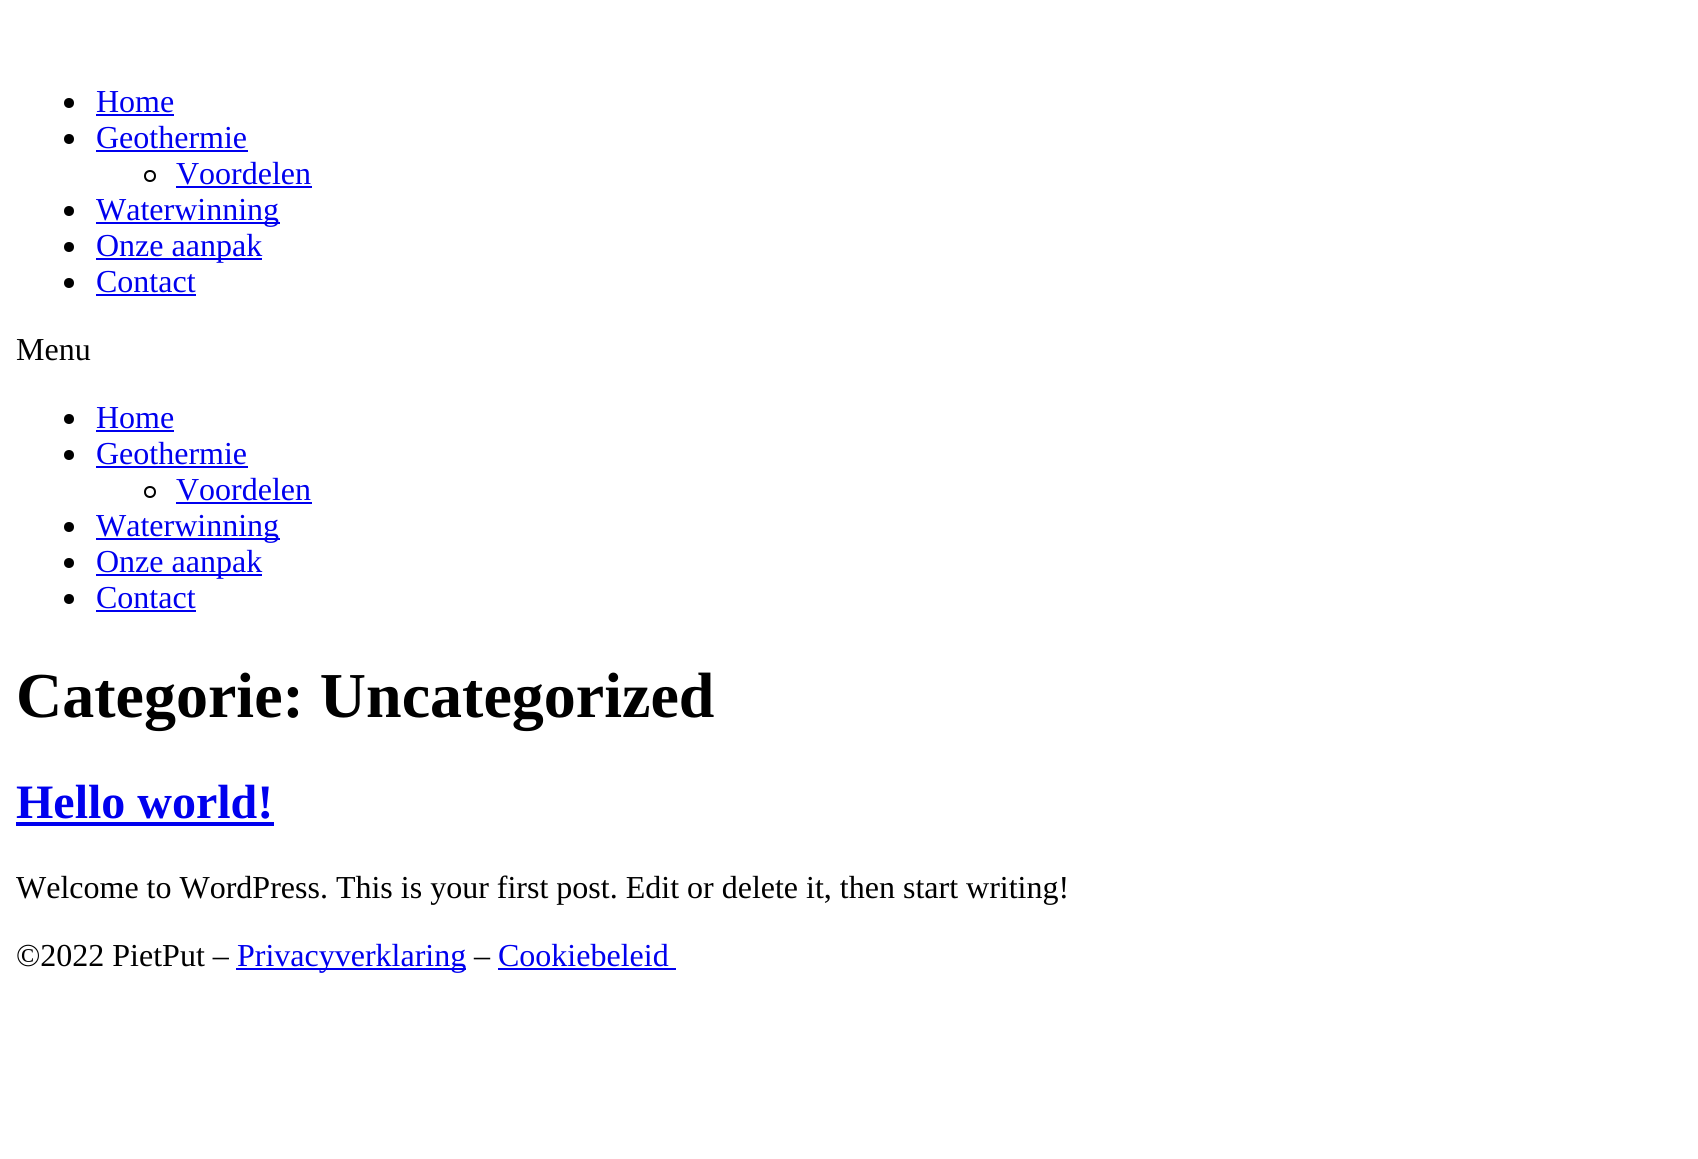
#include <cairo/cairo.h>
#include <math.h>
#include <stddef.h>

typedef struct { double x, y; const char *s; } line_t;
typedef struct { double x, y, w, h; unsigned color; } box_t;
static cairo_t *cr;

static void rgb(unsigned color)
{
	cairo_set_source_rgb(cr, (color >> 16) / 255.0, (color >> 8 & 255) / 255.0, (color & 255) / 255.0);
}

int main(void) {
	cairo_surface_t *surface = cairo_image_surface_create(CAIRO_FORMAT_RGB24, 1698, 1159);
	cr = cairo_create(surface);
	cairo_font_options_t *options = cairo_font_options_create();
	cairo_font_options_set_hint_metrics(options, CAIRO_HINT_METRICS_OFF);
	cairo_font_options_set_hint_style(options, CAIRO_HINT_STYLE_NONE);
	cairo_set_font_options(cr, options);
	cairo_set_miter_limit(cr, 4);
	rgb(0xffffff);
	cairo_paint(cr);
	rgb(0x000000);
	cairo_arc(cr, 69, 103, 5, 0, 2 * M_PI);
	cairo_fill(cr);
	rgb(0x0000ee);
	cairo_rectangle(cr, 96, 114, 78, 2);
	cairo_fill(cr);
	rgb(0x000000);
	cairo_arc(cr, 69, 139, 5, 0, 2 * M_PI);
	cairo_fill(cr);
	rgb(0x0000ee);
	cairo_rectangle(cr, 96, 150, 152, 2);
	cairo_fill(cr);
	cairo_arc(cr, 150, 176, 5, 0, 2 * M_PI);
	rgb(0x000000);
	cairo_stroke(cr);
	rgb(0x0000ee);
	cairo_rectangle(cr, 176, 186, 136, 2);
	cairo_fill(cr);
	rgb(0x000000);
	cairo_arc(cr, 69, 211, 5, 0, 2 * M_PI);
	cairo_fill(cr);
	rgb(0x0000ee);
	cairo_rectangle(cr, 96, 222, 184, 2);
	cairo_fill(cr);
	rgb(0x000000);
	cairo_arc(cr, 69, 247, 5, 0, 2 * M_PI);
	cairo_fill(cr);
	rgb(0x0000ee);
	cairo_rectangle(cr, 96, 258, 166, 2);
	cairo_fill(cr);
	rgb(0x000000);
	cairo_arc(cr, 69, 283, 5, 0, 2 * M_PI);
	cairo_fill(cr);
	rgb(0x0000ee);
	cairo_rectangle(cr, 96, 294, 100, 2);
	cairo_fill(cr);
	rgb(0x000000);
	cairo_arc(cr, 69, 419, 5, 0, 2 * M_PI);
	cairo_fill(cr);
	rgb(0x0000ee);
	cairo_rectangle(cr, 96, 430, 78, 2);
	cairo_fill(cr);
	rgb(0x000000);
	cairo_arc(cr, 69, 455, 5, 0, 2 * M_PI);
	cairo_fill(cr);
	rgb(0x0000ee);
	cairo_rectangle(cr, 96, 466, 152, 2);
	cairo_fill(cr);
	cairo_arc(cr, 150, 492, 5, 0, 2 * M_PI);
	rgb(0x000000);
	cairo_stroke(cr);
	rgb(0x0000ee);
	cairo_rectangle(cr, 176, 502, 136, 2);
	cairo_fill(cr);
	rgb(0x000000);
	cairo_arc(cr, 69, 527, 5, 0, 2 * M_PI);
	cairo_fill(cr);
	rgb(0x0000ee);
	cairo_rectangle(cr, 96, 538, 184, 2);
	cairo_fill(cr);
	rgb(0x000000);
	cairo_arc(cr, 69, 563, 5, 0, 2 * M_PI);
	cairo_fill(cr);
	rgb(0x0000ee);
	cairo_rectangle(cr, 96, 574, 166, 2);
	cairo_fill(cr);
	rgb(0x000000);
	cairo_arc(cr, 69, 599, 5, 0, 2 * M_PI);
	cairo_fill(cr);
	{
		static const box_t items[] = {
			{96, 610, 100, 2, 0x0000ee},
			{16, 822, 258, 4, 0x0000ee},
			{236, 968, 230, 2, 0x0000ee},
			{498, 968, 178, 2, 0x0000ee},
		};
		for (size_t i = 0; i < sizeof items / sizeof *items; i++) {
			rgb(items[i].color);
			cairo_rectangle(cr, items[i].x, items[i].y, items[i].w, items[i].h);
			cairo_fill(cr);
		}
	}
	cairo_select_font_face(cr, "Liberation Serif", CAIRO_FONT_SLANT_NORMAL, CAIRO_FONT_WEIGHT_NORMAL);
	cairo_set_font_size(cr, 32);
	{
		static const line_t items[] = {
			{96, 112, "Home"},
			{96, 148, "Geothermie"},
			{176, 184, "Voordelen"},
			{96, 220, "Waterwinning"},
			{96, 256, "Onze aanpak"},
			{96, 292, "Contact"},
		};
		for (size_t i = 0; i < sizeof items / sizeof *items; i++) {
			cairo_move_to(cr, items[i].x, items[i].y);
			cairo_show_text(cr, items[i].s);
		}
	}
	rgb(0x000000);
	cairo_move_to(cr, 16, 360);
	cairo_show_text(cr, "Menu");
	rgb(0x0000ee);
	{
		static const line_t items[] = {
			{96, 428, "Home"},
			{96, 464, "Geothermie"},
			{176, 500, "Voordelen"},
			{96, 536, "Waterwinning"},
			{96, 572, "Onze aanpak"},
			{96, 608, "Contact"},
		};
		for (size_t i = 0; i < sizeof items / sizeof *items; i++) {
			cairo_move_to(cr, items[i].x, items[i].y);
			cairo_show_text(cr, items[i].s);
		}
	}
	cairo_select_font_face(cr, "Liberation Serif", CAIRO_FONT_SLANT_NORMAL, CAIRO_FONT_WEIGHT_BOLD);
	cairo_set_font_size(cr, 64);
	rgb(0x000000);
	cairo_move_to(cr, 16, 717);
	cairo_show_text(cr, "Categorie: Uncategorized");
	cairo_set_font_size(cr, 48);
	rgb(0x0000ee);
	cairo_move_to(cr, 16, 818);
	cairo_show_text(cr, "Hello world!");
	cairo_select_font_face(cr, "Liberation Serif", CAIRO_FONT_SLANT_NORMAL, CAIRO_FONT_WEIGHT_NORMAL);
	cairo_set_font_size(cr, 32);
	rgb(0x000000);
	cairo_move_to(cr, 16, 898);
	cairo_show_text(cr, "Welcome to WordPress. This is your first post. Edit or delete it, then start writing!");
	cairo_move_to(cr, 16, 966);
	cairo_show_text(cr, "©2022 PietPut –");
	rgb(0x0000ee);
	cairo_move_to(cr, 237, 966);
	cairo_show_text(cr, "Privacyverklaring");
	rgb(0x000000);
	cairo_move_to(cr, 474, 966);
	cairo_show_text(cr, "–");
	rgb(0x0000ee);
	cairo_move_to(cr, 498, 966);
	cairo_show_text(cr, "Cookiebeleid");
	cairo_surface_write_to_png(surface, "page.png");
	cairo_font_options_destroy(options);
	cairo_destroy(cr);
	cairo_surface_destroy(surface);
	return 0;
}
